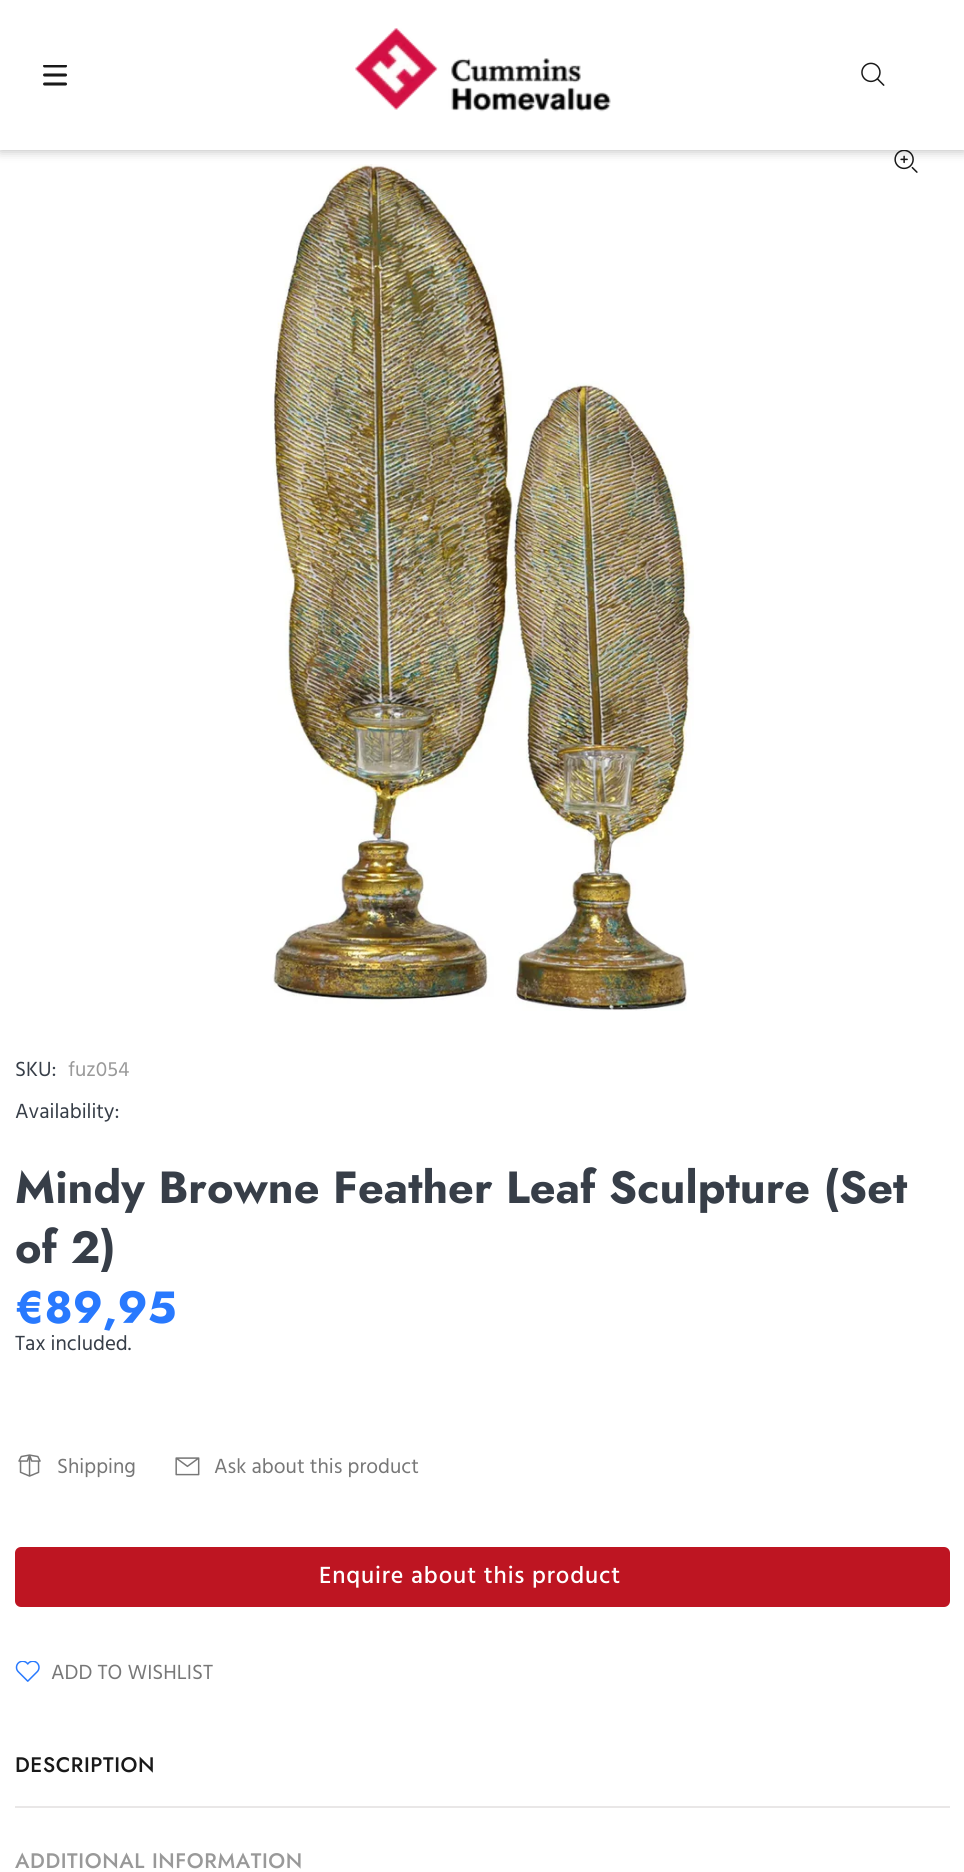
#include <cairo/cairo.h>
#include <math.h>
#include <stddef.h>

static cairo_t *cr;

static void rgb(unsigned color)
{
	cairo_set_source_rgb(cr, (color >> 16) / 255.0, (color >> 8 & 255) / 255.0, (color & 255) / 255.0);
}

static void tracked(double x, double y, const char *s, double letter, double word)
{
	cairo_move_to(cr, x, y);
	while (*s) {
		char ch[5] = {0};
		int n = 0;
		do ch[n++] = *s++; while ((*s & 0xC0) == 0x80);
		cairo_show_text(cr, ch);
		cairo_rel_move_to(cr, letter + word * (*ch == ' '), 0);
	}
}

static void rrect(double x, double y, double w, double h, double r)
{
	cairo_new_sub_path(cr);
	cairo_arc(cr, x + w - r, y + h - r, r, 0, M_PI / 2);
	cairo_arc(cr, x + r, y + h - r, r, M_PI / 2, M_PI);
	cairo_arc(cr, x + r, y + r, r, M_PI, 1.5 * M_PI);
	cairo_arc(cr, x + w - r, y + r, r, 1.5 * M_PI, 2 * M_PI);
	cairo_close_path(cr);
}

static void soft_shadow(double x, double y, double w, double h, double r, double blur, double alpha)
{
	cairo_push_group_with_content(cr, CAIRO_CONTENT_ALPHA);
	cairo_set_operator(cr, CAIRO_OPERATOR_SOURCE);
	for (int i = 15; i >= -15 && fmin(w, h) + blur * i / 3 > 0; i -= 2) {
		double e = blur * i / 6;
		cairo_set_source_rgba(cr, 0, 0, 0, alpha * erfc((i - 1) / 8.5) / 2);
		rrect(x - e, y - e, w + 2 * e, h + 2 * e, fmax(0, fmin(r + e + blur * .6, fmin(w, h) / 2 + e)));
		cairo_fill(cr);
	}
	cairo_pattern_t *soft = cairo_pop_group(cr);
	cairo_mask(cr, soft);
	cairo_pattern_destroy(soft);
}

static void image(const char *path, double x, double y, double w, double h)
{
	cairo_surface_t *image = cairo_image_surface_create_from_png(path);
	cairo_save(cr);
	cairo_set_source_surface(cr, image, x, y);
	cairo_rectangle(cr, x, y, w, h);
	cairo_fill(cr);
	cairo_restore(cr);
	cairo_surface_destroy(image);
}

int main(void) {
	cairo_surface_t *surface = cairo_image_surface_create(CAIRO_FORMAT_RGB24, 964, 1872);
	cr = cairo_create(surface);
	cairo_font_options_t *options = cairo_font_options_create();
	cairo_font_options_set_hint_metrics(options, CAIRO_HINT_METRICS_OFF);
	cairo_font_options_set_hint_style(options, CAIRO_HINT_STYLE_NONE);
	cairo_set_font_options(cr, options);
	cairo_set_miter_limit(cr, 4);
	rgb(0xffffff);
	cairo_paint(cr);
	image("img/4.png", 894, 150, 24, 23);
	image("img/5.png", 270, 164, 424, 847);
	rgb(0x000000);
	soft_shadow(0, 0, 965, 150, 0, 6, 0.3);
	rgb(0xffffff);
	cairo_rectangle(cr, 0, 0, 964, 150);
	cairo_fill(cr);
	image("img/1.png", 43, 65, 24, 21);
	image("img/2.png", 355, 28, 256, 84);
	image("img/3.png", 861, 62, 24, 24);
	image("img/6.png", 18, 1454, 23, 23);
	image("img/7.png", 175, 1457, 25, 19);
	rgb(0xbe1522);
	rrect(15, 1547, 935, 60, 6);
	cairo_fill(cr);
	image("img/8.png", 15, 1661, 25, 21);
	rgb(0xe9e7e7);
	cairo_rectangle(cr, 15, 1806, 935, 2);
	cairo_fill(cr);
	cairo_select_font_face(cr, "Hind", CAIRO_FONT_SLANT_NORMAL, CAIRO_FONT_WEIGHT_NORMAL);
	cairo_set_font_size(cr, 21);
	rgb(0x373e48);
	cairo_move_to(cr, 15, 1076);
	cairo_show_text(cr, "SKU:");
	rgb(0x999999);
	cairo_move_to(cr, 68, 1076);
	cairo_show_text(cr, "fuz054");
	rgb(0x373e48);
	cairo_move_to(cr, 15, 1118);
	cairo_show_text(cr, "Availability:");
	cairo_select_font_face(cr, "Jost", CAIRO_FONT_SLANT_NORMAL, CAIRO_FONT_WEIGHT_BOLD);
	cairo_set_font_size(cr, 45);
	tracked(15, 1203, "Mindy Browne Feather Leaf Sculpture (Set", 0.05, 0);
	tracked(15, 1263, "of 2)", 0.05, 0);
	rgb(0x2879fe);
	cairo_move_to(cr, 15, 1323);
	cairo_show_text(cr, "€89,95");
	cairo_select_font_face(cr, "Hind", CAIRO_FONT_SLANT_NORMAL, CAIRO_FONT_WEIGHT_NORMAL);
	cairo_set_font_size(cr, 21);
	rgb(0x373e48);
	cairo_move_to(cr, 15, 1350);
	cairo_show_text(cr, "Tax included.");
	rgb(0x777777);
	cairo_move_to(cr, 57, 1473);
	cairo_show_text(cr, "Shipping");
	cairo_move_to(cr, 214, 1473);
	cairo_show_text(cr, "Ask about this product");
	cairo_select_font_face(cr, "Hind Medium", CAIRO_FONT_SLANT_NORMAL, CAIRO_FONT_WEIGHT_NORMAL);
	cairo_set_font_size(cr, 24);
	rgb(0xffffff);
	tracked(319, 1583, "Enquire about this product", 0.85, 0);
	cairo_select_font_face(cr, "Hind", CAIRO_FONT_SLANT_NORMAL, CAIRO_FONT_WEIGHT_NORMAL);
	cairo_set_font_size(cr, 21);
	rgb(0x777777);
	cairo_move_to(cr, 51, 1679);
	cairo_show_text(cr, "ADD TO WISHLIST");
	cairo_select_font_face(cr, "Jost Medium", CAIRO_FONT_SLANT_NORMAL, CAIRO_FONT_WEIGHT_NORMAL);
	rgb(0x191919);
	tracked(15, 1772, "DESCRIPTION", 0.6, 0);
	rgb(0x999999);
	tracked(15, 1868, "ADDITIONAL INFORMATION", 0.6, 0);
	cairo_surface_write_to_png(surface, "page.png");
	cairo_font_options_destroy(options);
	cairo_destroy(cr);
	cairo_surface_destroy(surface);
	return 0;
}
